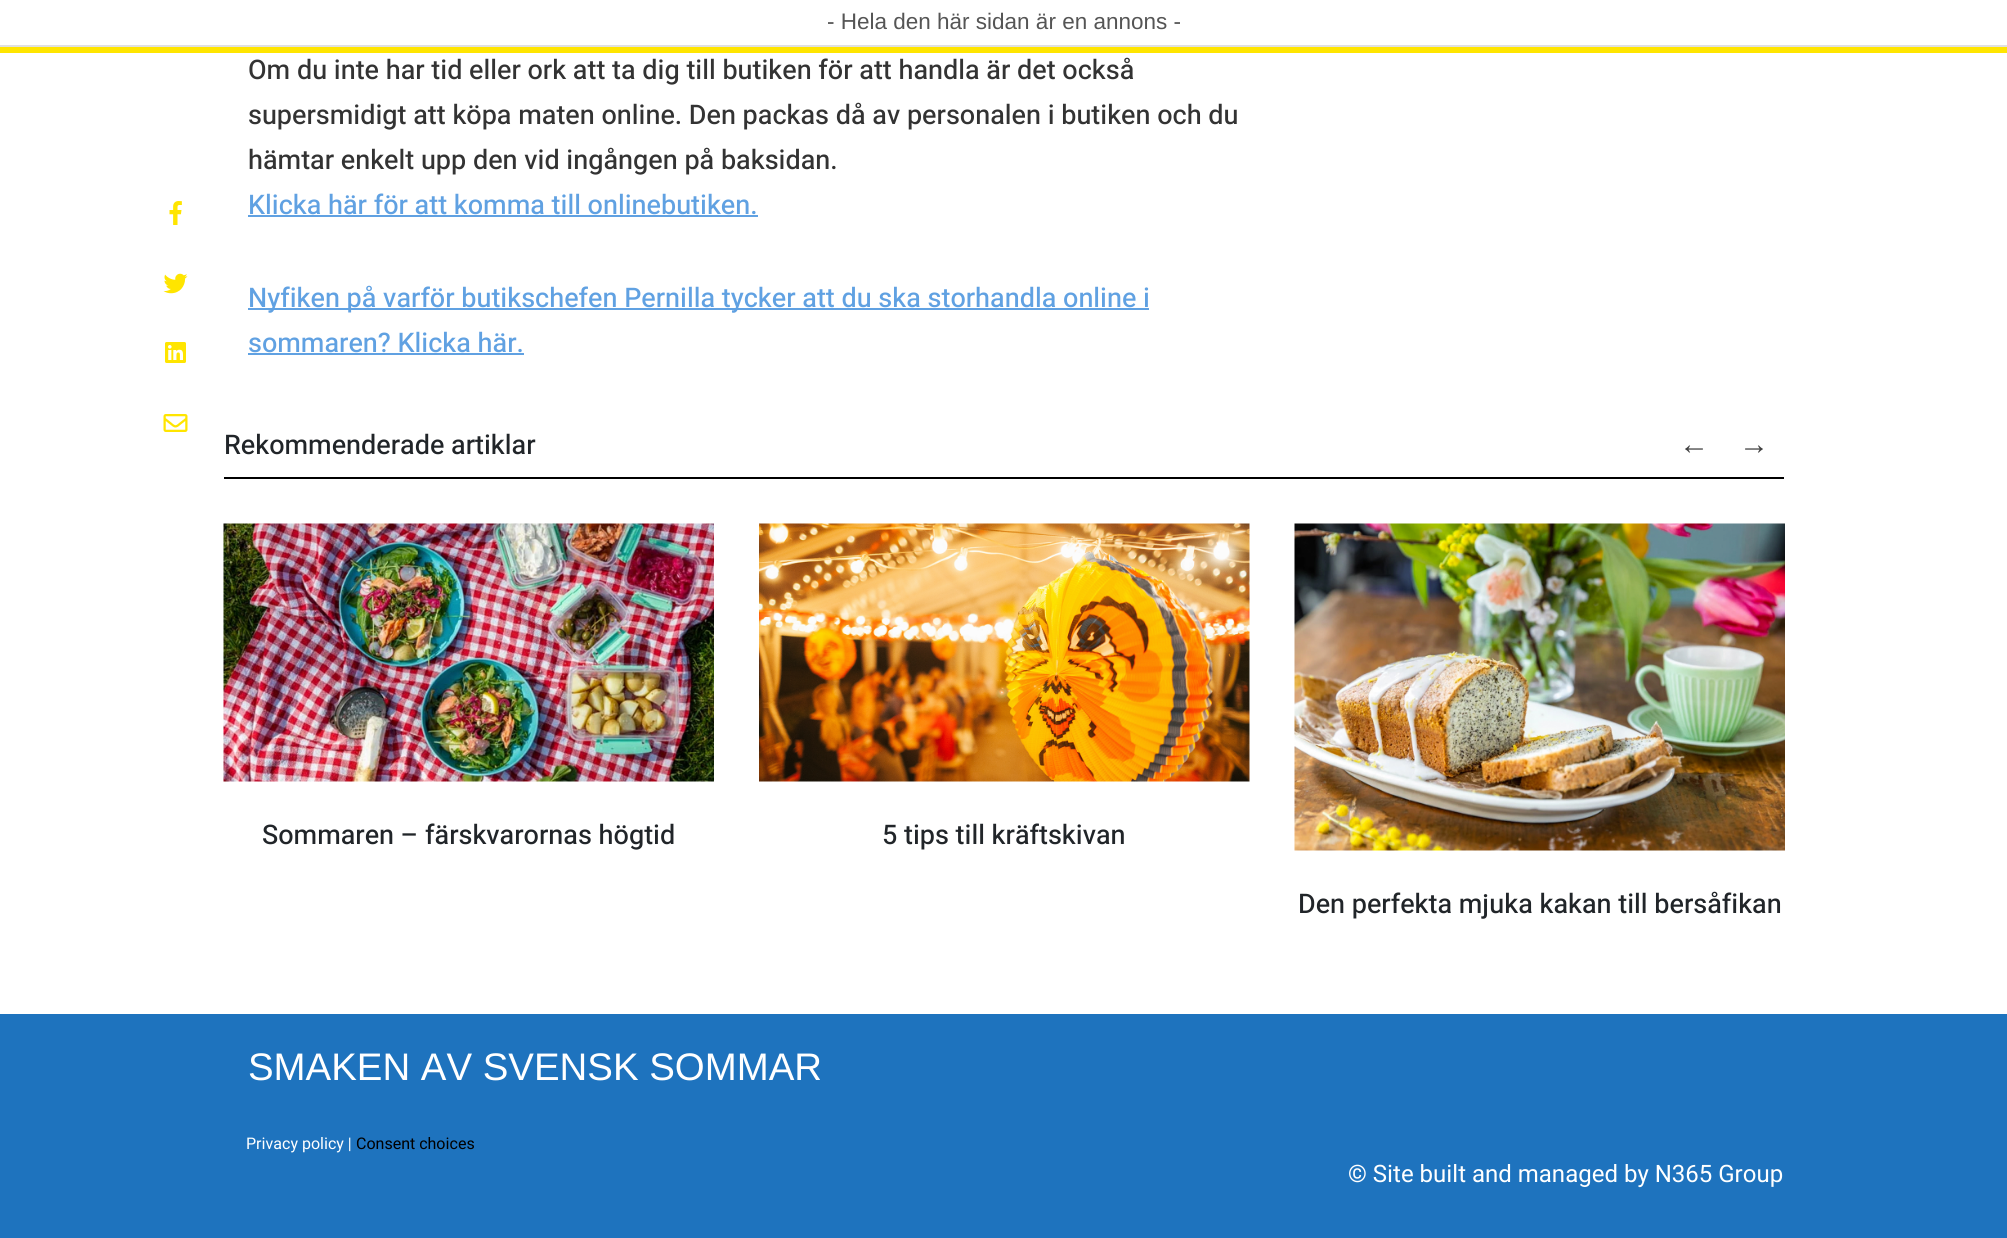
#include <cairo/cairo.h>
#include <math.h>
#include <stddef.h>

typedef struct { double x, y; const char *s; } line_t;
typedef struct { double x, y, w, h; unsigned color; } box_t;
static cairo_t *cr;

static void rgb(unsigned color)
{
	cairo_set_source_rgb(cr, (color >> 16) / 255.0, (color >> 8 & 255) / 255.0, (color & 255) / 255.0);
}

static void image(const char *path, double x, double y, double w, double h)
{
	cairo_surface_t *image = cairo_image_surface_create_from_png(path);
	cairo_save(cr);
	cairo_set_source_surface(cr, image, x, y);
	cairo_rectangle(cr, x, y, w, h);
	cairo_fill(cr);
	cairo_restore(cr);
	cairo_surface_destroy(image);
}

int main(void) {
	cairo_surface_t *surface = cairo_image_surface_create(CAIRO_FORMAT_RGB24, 2007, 1238);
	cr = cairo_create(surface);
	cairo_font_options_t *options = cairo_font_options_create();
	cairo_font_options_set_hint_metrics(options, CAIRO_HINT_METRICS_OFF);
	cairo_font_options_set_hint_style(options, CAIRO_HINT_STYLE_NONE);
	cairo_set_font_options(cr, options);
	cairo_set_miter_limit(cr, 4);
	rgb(0xffffff);
	cairo_paint(cr);
	rgb(0xe0e0e0);
	cairo_rectangle(cr, 0, 45, 2007, 2);
	cairo_fill(cr);
	rgb(0xffe500);
	cairo_rectangle(cr, 0, 47, 2007, 6);
	cairo_fill(cr);
	image("img/1.png", 169, 201, 13, 24);
	image("img/2.png", 163, 273, 25, 21);
	image("img/3.png", 165, 342, 21, 21);
	image("img/4.png", 163, 414, 25, 18);
	{
		static const box_t items[] = {
			{248, 215, 510, 2, 0x60a1e2},
			{248, 308, 901, 2, 0x60a1e2},
			{248, 353, 276, 2, 0x60a1e2},
			{224, 477, 1560, 2, 0x000000},
		};
		for (size_t i = 0; i < sizeof items / sizeof *items; i++) {
			rgb(items[i].color);
			cairo_rectangle(cr, items[i].x, items[i].y, items[i].w, items[i].h);
			cairo_fill(cr);
		}
	}
	image("img/5.png", 223, 523, 491, 259);
	image("img/6.png", 759, 523, 491, 259);
	image("img/7.png", 1294, 523, 491, 328);
	rgb(0x1e73be);
	cairo_rectangle(cr, 0, 1014, 2007, 224);
	cairo_fill(cr);
	cairo_select_font_face(cr, "Liberation Sans", CAIRO_FONT_SLANT_NORMAL, CAIRO_FONT_WEIGHT_NORMAL);
	cairo_set_font_size(cr, 22.5);
	rgb(0x555555);
	cairo_move_to(cr, 827, 29);
	cairo_show_text(cr, "- Hela den här sidan är en annons -");
	cairo_select_font_face(cr, "Heebo Medium", CAIRO_FONT_SLANT_NORMAL, CAIRO_FONT_WEIGHT_NORMAL);
	cairo_set_font_size(cr, 27);
	rgb(0x333333);
	{
		static const line_t items[] = {
			{248, 79, "Om du inte har tid eller ork att ta dig till butiken för att handla är det också"},
			{248, 124, "supersmidigt att köpa maten online. Den packas då av personalen i butiken och du"},
			{248, 169, "hämtar enkelt upp den vid ingången på baksidan."},
		};
		for (size_t i = 0; i < sizeof items / sizeof *items; i++) {
			cairo_move_to(cr, items[i].x, items[i].y);
			cairo_show_text(cr, items[i].s);
		}
	}
	rgb(0x60a1e2);
	{
		static const line_t items[] = {
			{248, 214, "Klicka här för att komma till onlinebutiken."},
			{248, 307, "Nyfiken på varför butikschefen Pernilla tycker att du ska storhandla online i"},
			{248, 352, "sommaren? Klicka här."},
		};
		for (size_t i = 0; i < sizeof items / sizeof *items; i++) {
			cairo_move_to(cr, items[i].x, items[i].y);
			cairo_show_text(cr, items[i].s);
		}
	}
	rgb(0x212529);
	cairo_move_to(cr, 224, 454);
	cairo_show_text(cr, "Rekommenderade artiklar");
	cairo_select_font_face(cr, "Liberation Serif", CAIRO_FONT_SLANT_NORMAL, CAIRO_FONT_WEIGHT_NORMAL);
	cairo_set_font_size(cr, 30);
	rgb(0x404040);
	cairo_move_to(cr, 1679, 454);
	cairo_show_text(cr, "←");
	cairo_move_to(cr, 1739, 454);
	cairo_show_text(cr, "→");
	cairo_select_font_face(cr, "Heebo Medium", CAIRO_FONT_SLANT_NORMAL, CAIRO_FONT_WEIGHT_NORMAL);
	cairo_set_font_size(cr, 27);
	rgb(0x212529);
	{
		static const line_t items[] = {
			{262, 844, "Sommaren – färskvarornas högtid"},
			{882, 844, "5 tips till kräftskivan"},
			{1298, 913, "Den perfekta mjuka kakan till bersåfikan"},
		};
		for (size_t i = 0; i < sizeof items / sizeof *items; i++) {
			cairo_move_to(cr, items[i].x, items[i].y);
			cairo_show_text(cr, items[i].s);
		}
	}
	cairo_select_font_face(cr, "Liberation Sans", CAIRO_FONT_SLANT_NORMAL, CAIRO_FONT_WEIGHT_NORMAL);
	cairo_set_font_size(cr, 38.4);
	rgb(0xffffff);
	cairo_move_to(cr, 248, 1080);
	cairo_show_text(cr, "SMAKEN AV SVENSK SOMMAR");
	cairo_select_font_face(cr, "Heebo", CAIRO_FONT_SLANT_NORMAL, CAIRO_FONT_WEIGHT_NORMAL);
	cairo_set_font_size(cr, 16);
	cairo_move_to(cr, 246, 1149);
	cairo_show_text(cr, "Privacy policy |");
	rgb(0x000000);
	cairo_move_to(cr, 356, 1149);
	cairo_show_text(cr, "Consent choices");
	cairo_set_font_size(cr, 24);
	rgb(0xffffff);
	cairo_move_to(cr, 1348, 1182);
	cairo_show_text(cr, "© Site built and managed by N365 Group");
	cairo_surface_write_to_png(surface, "page.png");
	cairo_font_options_destroy(options);
	cairo_destroy(cr);
	cairo_surface_destroy(surface);
	return 0;
}
